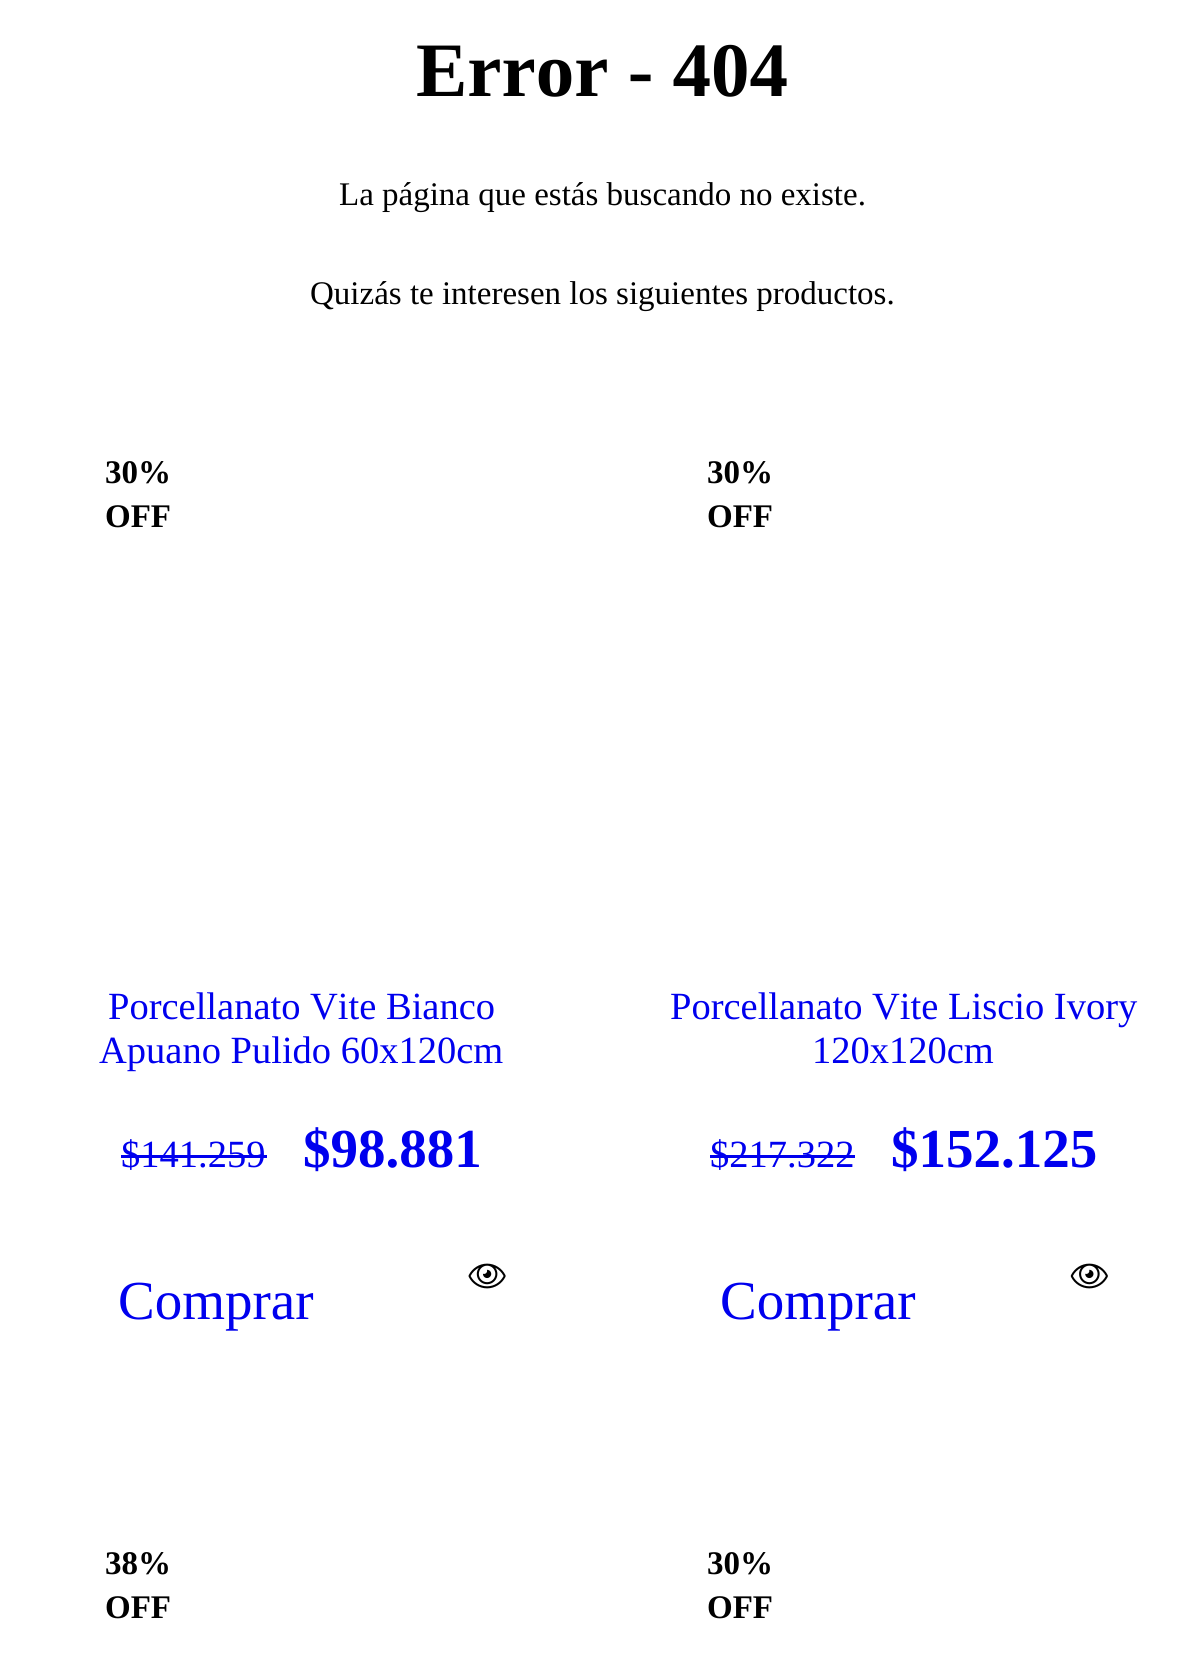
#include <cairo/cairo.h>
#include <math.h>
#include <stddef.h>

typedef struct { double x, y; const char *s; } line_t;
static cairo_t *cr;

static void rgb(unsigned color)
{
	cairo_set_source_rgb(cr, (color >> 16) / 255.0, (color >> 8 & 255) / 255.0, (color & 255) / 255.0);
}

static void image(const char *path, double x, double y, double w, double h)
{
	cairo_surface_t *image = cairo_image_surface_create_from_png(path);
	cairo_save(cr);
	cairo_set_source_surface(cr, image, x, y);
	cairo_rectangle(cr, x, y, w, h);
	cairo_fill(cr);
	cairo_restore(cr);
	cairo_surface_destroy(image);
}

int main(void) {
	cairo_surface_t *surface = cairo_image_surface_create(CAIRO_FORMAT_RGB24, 1202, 1668);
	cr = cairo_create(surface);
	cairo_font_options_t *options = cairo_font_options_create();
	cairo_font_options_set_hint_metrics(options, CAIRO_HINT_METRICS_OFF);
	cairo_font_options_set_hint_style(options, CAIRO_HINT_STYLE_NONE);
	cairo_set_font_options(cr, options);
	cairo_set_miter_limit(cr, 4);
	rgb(0xffffff);
	cairo_paint(cr);
	rgb(0x0000ee);
	cairo_rectangle(cr, 121, 1155, 146, 3);
	cairo_fill(cr);
	image("img/1.png", 468, 1263, 38, 26);
	cairo_rectangle(cr, 710, 1155, 145, 3);
	cairo_fill(cr);
	image("img/2.png", 1070, 1263, 38, 26);
	cairo_select_font_face(cr, "Liberation Serif", CAIRO_FONT_SLANT_NORMAL, CAIRO_FONT_WEIGHT_BOLD);
	cairo_set_font_size(cr, 77);
	rgb(0x000000);
	cairo_move_to(cr, 416, 96);
	cairo_show_text(cr, "Error - 404");
	cairo_select_font_face(cr, "Liberation Serif", CAIRO_FONT_SLANT_NORMAL, CAIRO_FONT_WEIGHT_NORMAL);
	cairo_set_font_size(cr, 33);
	cairo_move_to(cr, 339, 205);
	cairo_show_text(cr, "La página que estás buscando no existe.");
	cairo_move_to(cr, 310, 304);
	cairo_show_text(cr, "Quizás te interesen los siguientes productos.");
	cairo_select_font_face(cr, "Liberation Serif", CAIRO_FONT_SLANT_NORMAL, CAIRO_FONT_WEIGHT_BOLD);
	cairo_move_to(cr, 105, 483);
	cairo_show_text(cr, "30%");
	cairo_move_to(cr, 105, 527);
	cairo_show_text(cr, "OFF");
	cairo_select_font_face(cr, "Liberation Serif", CAIRO_FONT_SLANT_NORMAL, CAIRO_FONT_WEIGHT_NORMAL);
	cairo_set_font_size(cr, 38.5);
	rgb(0x0000ee);
	{
		static const line_t items[] = {
			{108, 1019, "Porcellanato Vite Bianco"},
			{99, 1063, "Apuano Pulido 60x120cm"},
			{121, 1167, "$141.259"},
		};
		for (size_t i = 0; i < sizeof items / sizeof *items; i++) {
			cairo_move_to(cr, items[i].x, items[i].y);
			cairo_show_text(cr, items[i].s);
		}
	}
	cairo_select_font_face(cr, "Liberation Serif", CAIRO_FONT_SLANT_NORMAL, CAIRO_FONT_WEIGHT_BOLD);
	cairo_set_font_size(cr, 55);
	cairo_move_to(cr, 303, 1167);
	cairo_show_text(cr, "$98.881");
	cairo_select_font_face(cr, "Liberation Serif", CAIRO_FONT_SLANT_NORMAL, CAIRO_FONT_WEIGHT_NORMAL);
	cairo_move_to(cr, 118, 1319);
	cairo_show_text(cr, "Comprar");
	cairo_select_font_face(cr, "Liberation Serif", CAIRO_FONT_SLANT_NORMAL, CAIRO_FONT_WEIGHT_BOLD);
	cairo_set_font_size(cr, 33);
	rgb(0x000000);
	cairo_move_to(cr, 707, 483);
	cairo_show_text(cr, "30%");
	cairo_move_to(cr, 707, 527);
	cairo_show_text(cr, "OFF");
	cairo_select_font_face(cr, "Liberation Serif", CAIRO_FONT_SLANT_NORMAL, CAIRO_FONT_WEIGHT_NORMAL);
	cairo_set_font_size(cr, 38.5);
	rgb(0x0000ee);
	{
		static const line_t items[] = {
			{670, 1019, "Porcellanato Vite Liscio Ivory"},
			{812, 1063, "120x120cm"},
			{710, 1167, "$217.322"},
		};
		for (size_t i = 0; i < sizeof items / sizeof *items; i++) {
			cairo_move_to(cr, items[i].x, items[i].y);
			cairo_show_text(cr, items[i].s);
		}
	}
	cairo_select_font_face(cr, "Liberation Serif", CAIRO_FONT_SLANT_NORMAL, CAIRO_FONT_WEIGHT_BOLD);
	cairo_set_font_size(cr, 55);
	cairo_move_to(cr, 891, 1167);
	cairo_show_text(cr, "$152.125");
	cairo_select_font_face(cr, "Liberation Serif", CAIRO_FONT_SLANT_NORMAL, CAIRO_FONT_WEIGHT_NORMAL);
	cairo_move_to(cr, 720, 1319);
	cairo_show_text(cr, "Comprar");
	cairo_select_font_face(cr, "Liberation Serif", CAIRO_FONT_SLANT_NORMAL, CAIRO_FONT_WEIGHT_BOLD);
	cairo_set_font_size(cr, 33);
	rgb(0x000000);
	{
		static const line_t items[] = {
			{105, 1574, "38%"},
			{105, 1618, "OFF"},
			{707, 1574, "30%"},
			{707, 1618, "OFF"},
		};
		for (size_t i = 0; i < sizeof items / sizeof *items; i++) {
			cairo_move_to(cr, items[i].x, items[i].y);
			cairo_show_text(cr, items[i].s);
		}
	}
	cairo_surface_write_to_png(surface, "page.png");
	cairo_font_options_destroy(options);
	cairo_destroy(cr);
	cairo_surface_destroy(surface);
	return 0;
}
